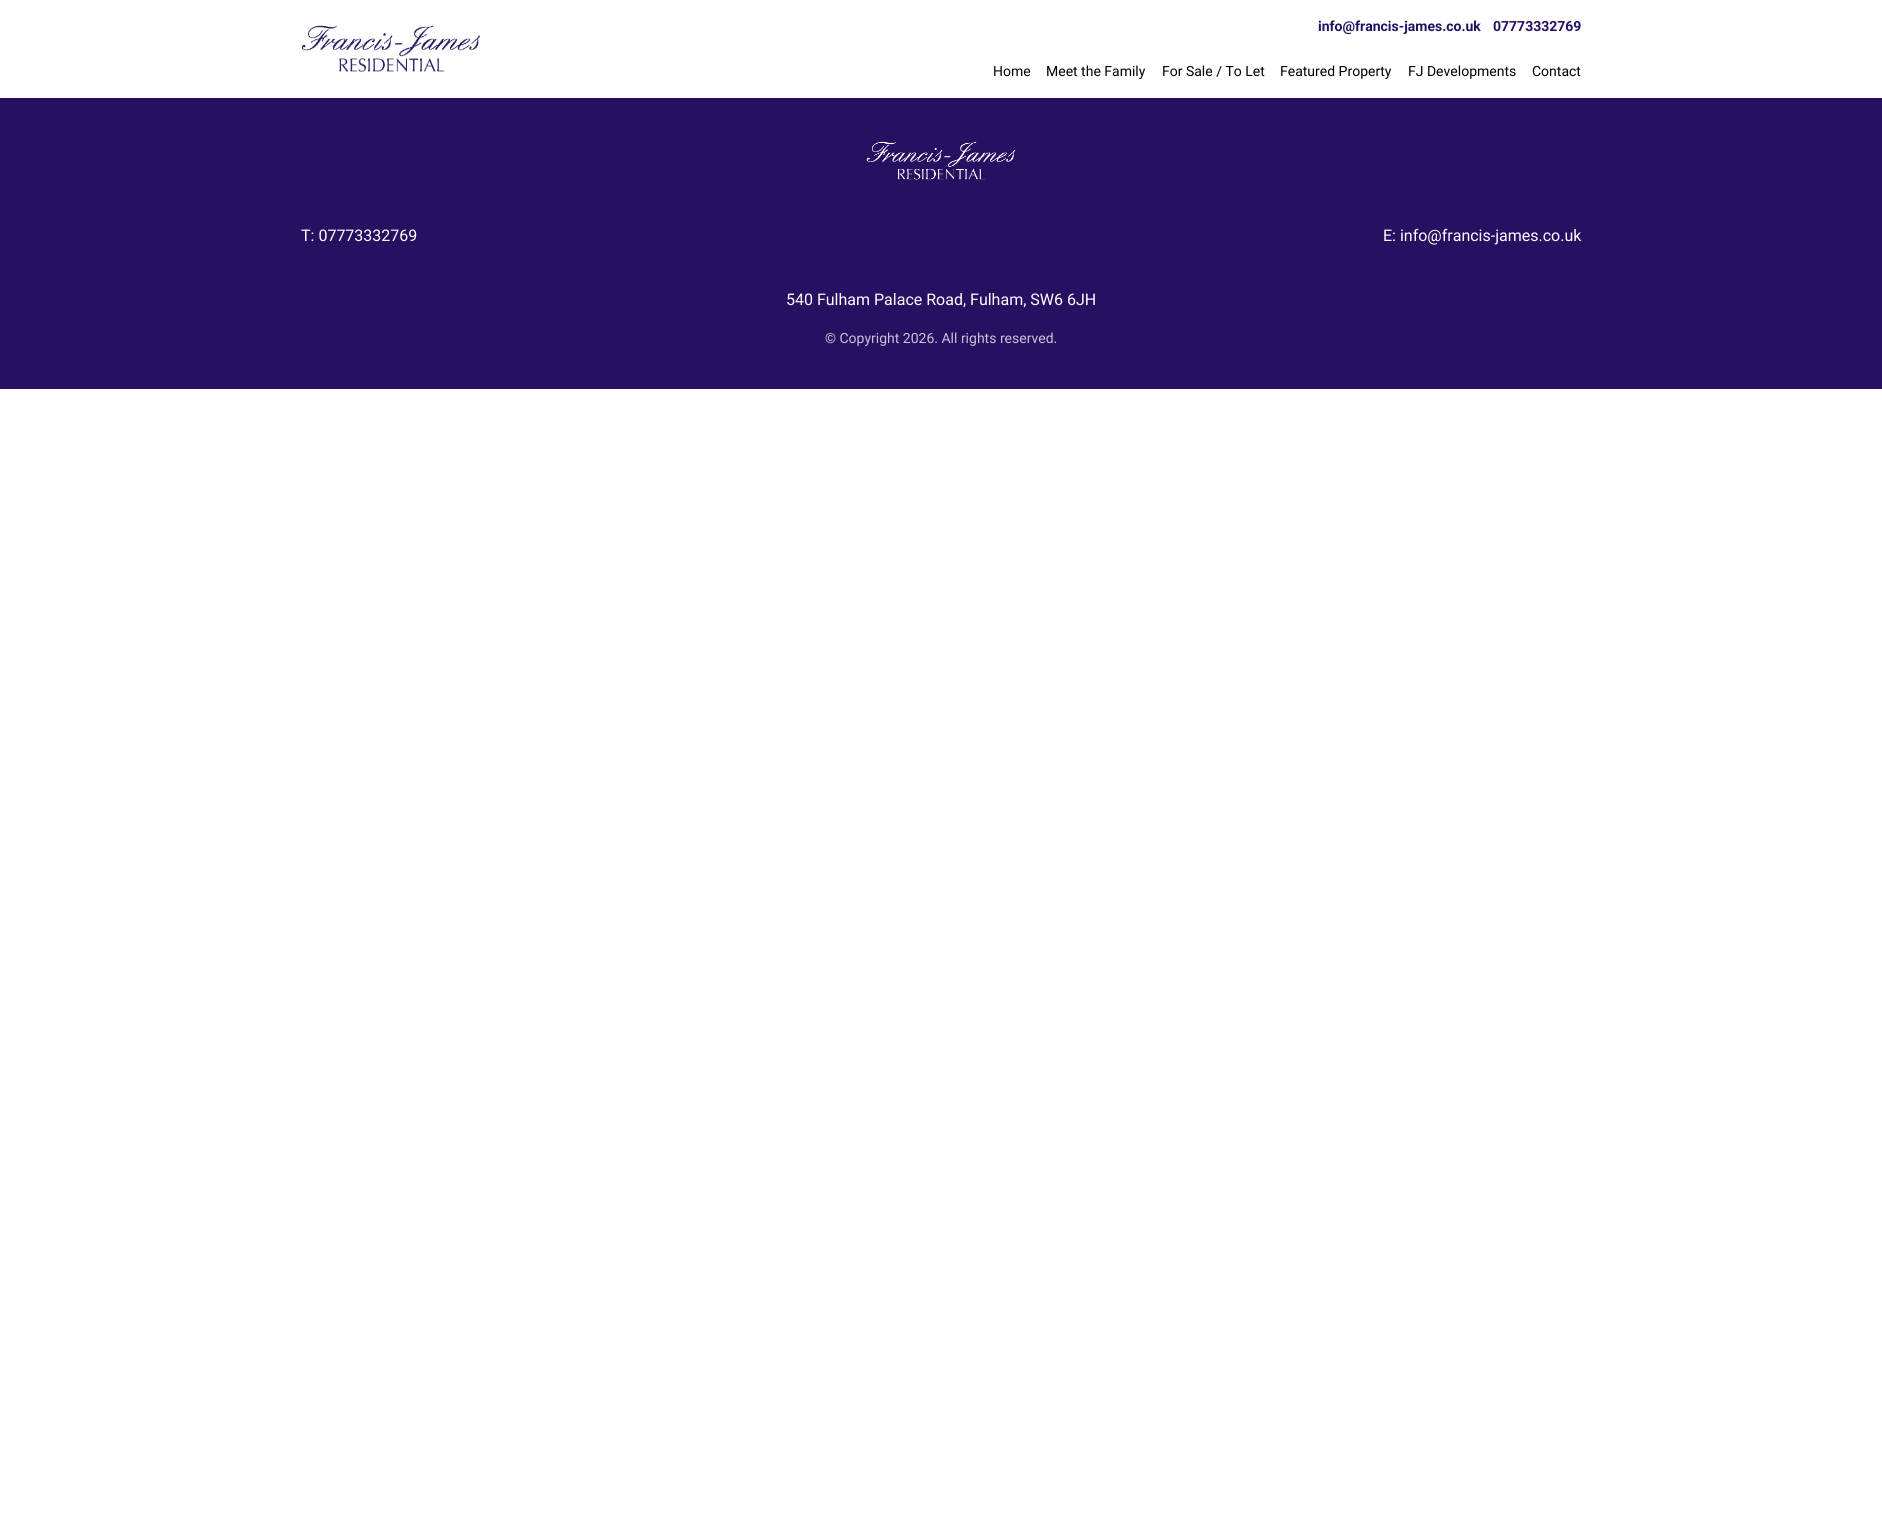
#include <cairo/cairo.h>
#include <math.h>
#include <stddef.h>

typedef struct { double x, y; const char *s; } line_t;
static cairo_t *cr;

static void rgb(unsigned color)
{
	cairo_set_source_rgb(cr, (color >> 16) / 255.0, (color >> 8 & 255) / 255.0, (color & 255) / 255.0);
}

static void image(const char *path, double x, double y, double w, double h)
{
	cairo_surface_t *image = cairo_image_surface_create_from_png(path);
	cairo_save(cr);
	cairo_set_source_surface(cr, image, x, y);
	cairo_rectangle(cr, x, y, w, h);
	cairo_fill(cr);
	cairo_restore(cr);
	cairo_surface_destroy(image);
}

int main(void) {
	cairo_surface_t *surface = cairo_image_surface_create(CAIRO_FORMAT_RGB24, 1882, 1513);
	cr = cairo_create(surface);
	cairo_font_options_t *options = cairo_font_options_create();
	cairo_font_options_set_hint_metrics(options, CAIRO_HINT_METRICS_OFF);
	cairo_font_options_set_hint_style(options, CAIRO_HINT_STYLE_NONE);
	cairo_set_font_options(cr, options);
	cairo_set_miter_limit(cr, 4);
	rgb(0xffffff);
	cairo_paint(cr);
	image("img/1.png", 301, 25, 179, 48);
	rgb(0x251061);
	cairo_rectangle(cr, 0, 98, 1882, 291);
	cairo_fill(cr);
	image("img/2.png", 866, 141, 149, 39);
	cairo_select_font_face(cr, "Roboto", CAIRO_FONT_SLANT_NORMAL, CAIRO_FONT_WEIGHT_BOLD);
	cairo_set_font_size(cr, 14);
	cairo_move_to(cr, 1318, 31);
	cairo_show_text(cr, "info@francis-james.co.uk");
	cairo_move_to(cr, 1493, 31);
	cairo_show_text(cr, "07773332769");
	cairo_select_font_face(cr, "Roboto", CAIRO_FONT_SLANT_NORMAL, CAIRO_FONT_WEIGHT_NORMAL);
	rgb(0x000000);
	{
		static const line_t items[] = {
			{993, 76, "Home"},
			{1046, 76, "Meet the Family"},
			{1162, 76, "For Sale / To Let"},
			{1280, 76, "Featured Property"},
			{1408, 76, "FJ Developments"},
			{1532, 76, "Contact"},
		};
		for (size_t i = 0; i < sizeof items / sizeof *items; i++) {
			cairo_move_to(cr, items[i].x, items[i].y);
			cairo_show_text(cr, items[i].s);
		}
	}
	cairo_set_font_size(cr, 16);
	rgb(0xffffff);
	{
		static const line_t items[] = {
			{301, 241, "T: 07773332769"},
			{1383, 241, "E: info@francis-james.co.uk"},
			{786, 305, "540 Fulham Palace Road, Fulham, SW6 6JH"},
		};
		for (size_t i = 0; i < sizeof items / sizeof *items; i++) {
			cairo_move_to(cr, items[i].x, items[i].y);
			cairo_show_text(cr, items[i].s);
		}
	}
	cairo_set_font_size(cr, 14);
	rgb(0xc9c3d8);
	cairo_move_to(cr, 825, 343);
	cairo_show_text(cr, "© Copyright 2026. All rights reserved.");
	cairo_surface_write_to_png(surface, "page.png");
	cairo_font_options_destroy(options);
	cairo_destroy(cr);
	cairo_surface_destroy(surface);
	return 0;
}
